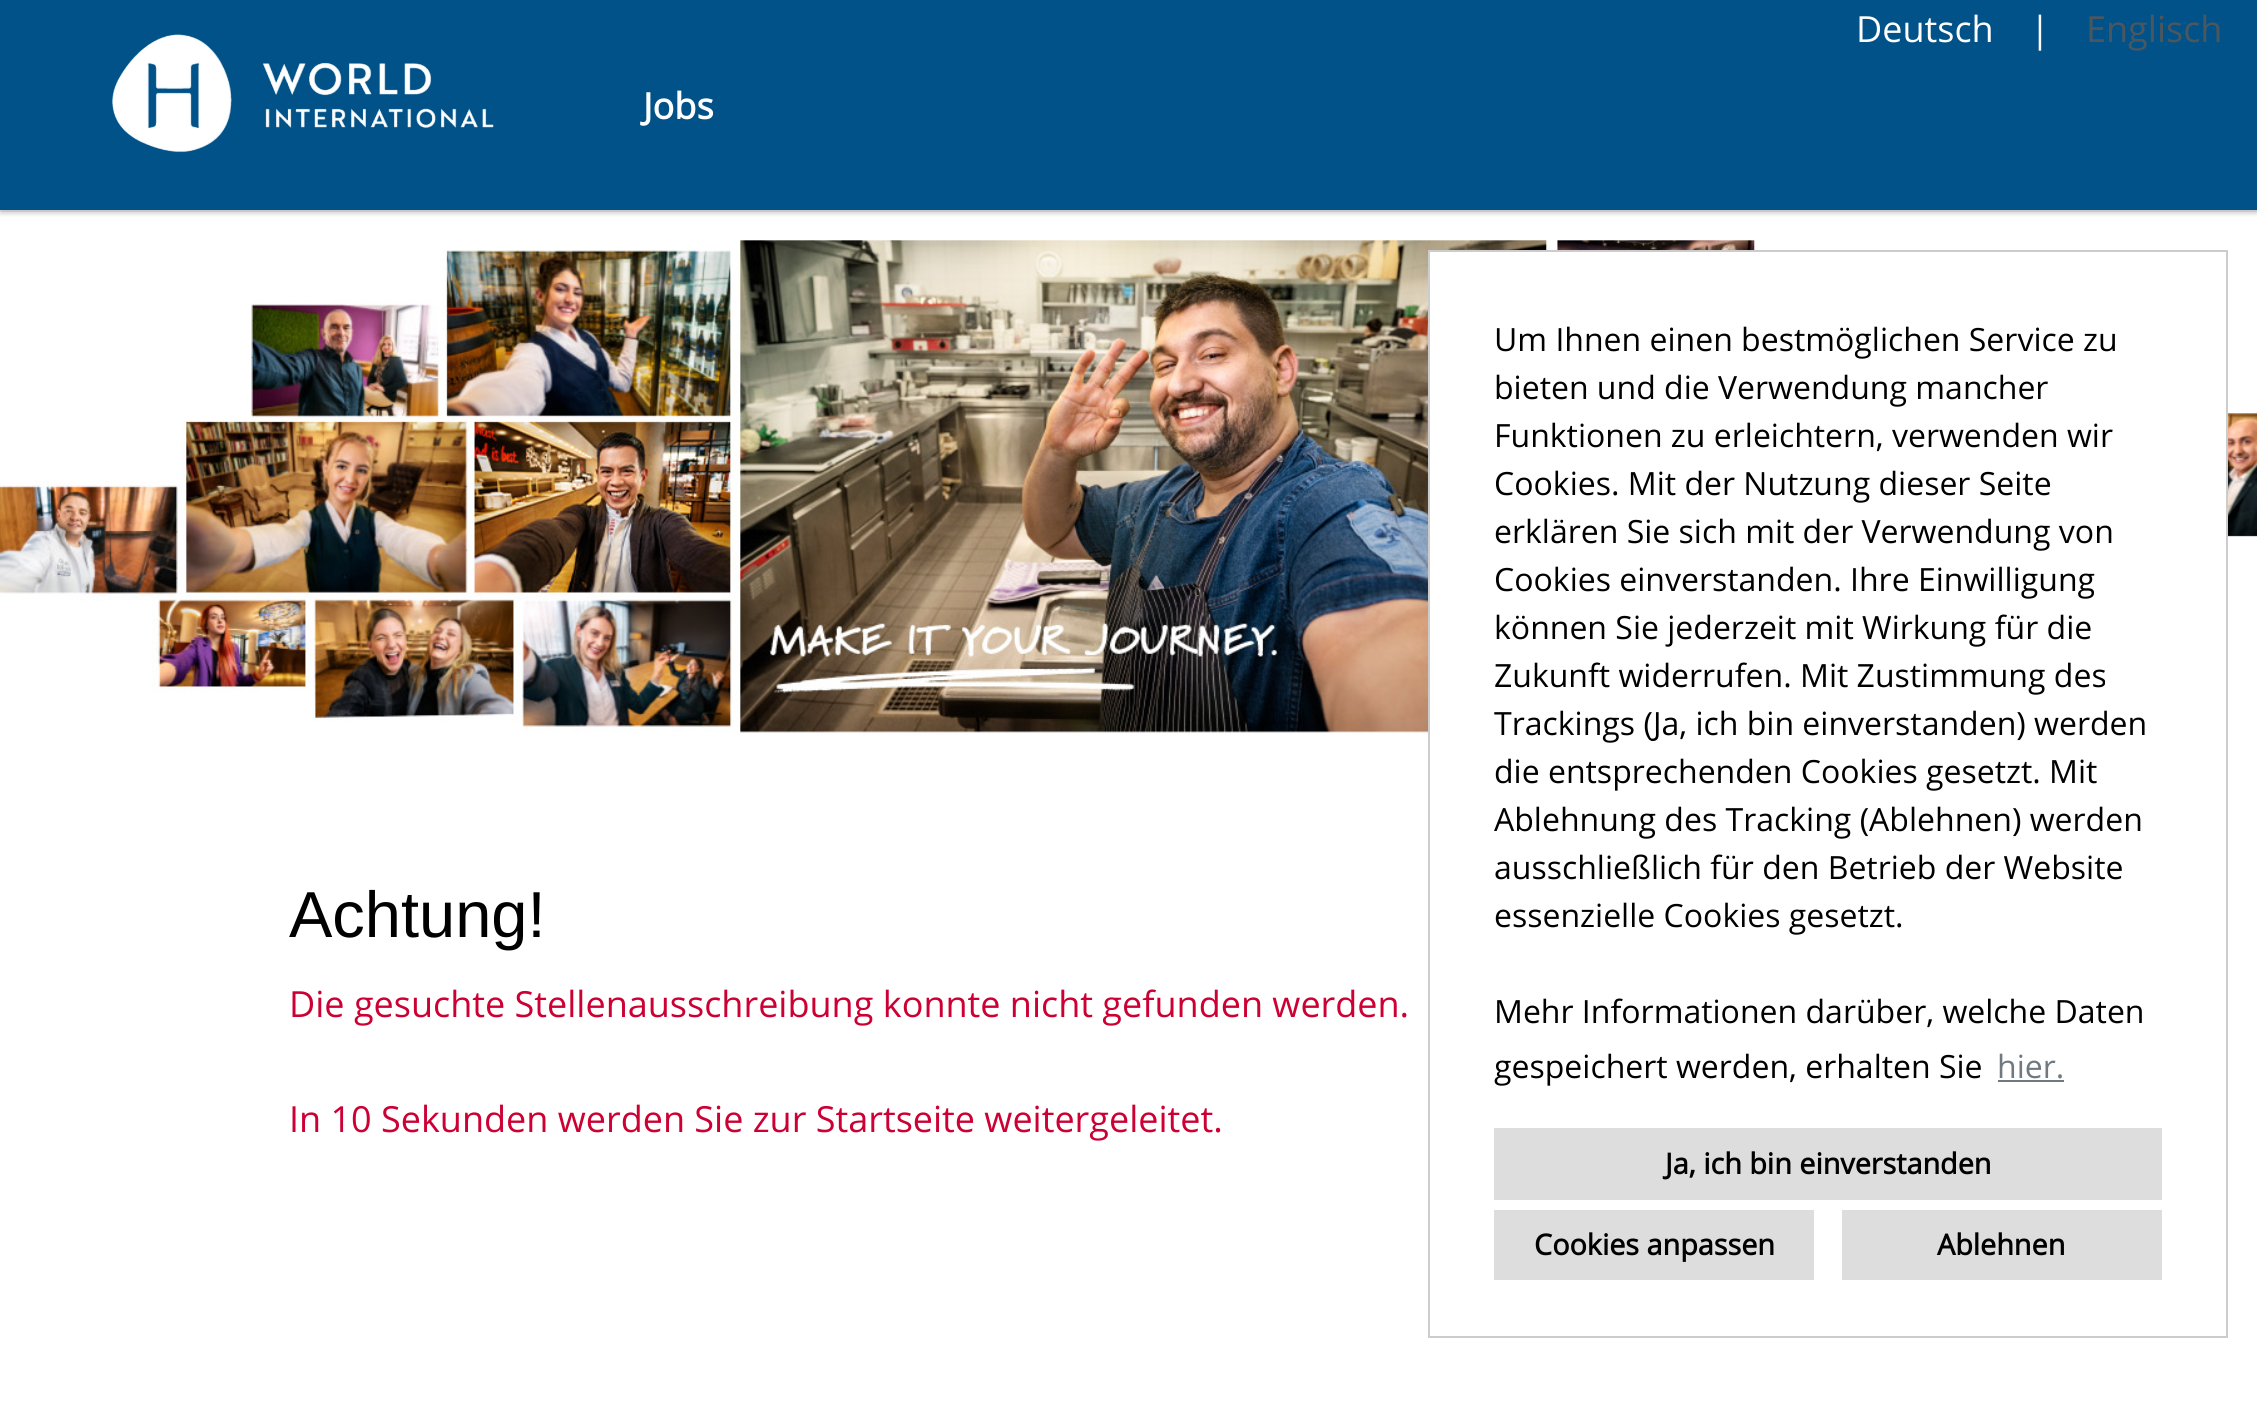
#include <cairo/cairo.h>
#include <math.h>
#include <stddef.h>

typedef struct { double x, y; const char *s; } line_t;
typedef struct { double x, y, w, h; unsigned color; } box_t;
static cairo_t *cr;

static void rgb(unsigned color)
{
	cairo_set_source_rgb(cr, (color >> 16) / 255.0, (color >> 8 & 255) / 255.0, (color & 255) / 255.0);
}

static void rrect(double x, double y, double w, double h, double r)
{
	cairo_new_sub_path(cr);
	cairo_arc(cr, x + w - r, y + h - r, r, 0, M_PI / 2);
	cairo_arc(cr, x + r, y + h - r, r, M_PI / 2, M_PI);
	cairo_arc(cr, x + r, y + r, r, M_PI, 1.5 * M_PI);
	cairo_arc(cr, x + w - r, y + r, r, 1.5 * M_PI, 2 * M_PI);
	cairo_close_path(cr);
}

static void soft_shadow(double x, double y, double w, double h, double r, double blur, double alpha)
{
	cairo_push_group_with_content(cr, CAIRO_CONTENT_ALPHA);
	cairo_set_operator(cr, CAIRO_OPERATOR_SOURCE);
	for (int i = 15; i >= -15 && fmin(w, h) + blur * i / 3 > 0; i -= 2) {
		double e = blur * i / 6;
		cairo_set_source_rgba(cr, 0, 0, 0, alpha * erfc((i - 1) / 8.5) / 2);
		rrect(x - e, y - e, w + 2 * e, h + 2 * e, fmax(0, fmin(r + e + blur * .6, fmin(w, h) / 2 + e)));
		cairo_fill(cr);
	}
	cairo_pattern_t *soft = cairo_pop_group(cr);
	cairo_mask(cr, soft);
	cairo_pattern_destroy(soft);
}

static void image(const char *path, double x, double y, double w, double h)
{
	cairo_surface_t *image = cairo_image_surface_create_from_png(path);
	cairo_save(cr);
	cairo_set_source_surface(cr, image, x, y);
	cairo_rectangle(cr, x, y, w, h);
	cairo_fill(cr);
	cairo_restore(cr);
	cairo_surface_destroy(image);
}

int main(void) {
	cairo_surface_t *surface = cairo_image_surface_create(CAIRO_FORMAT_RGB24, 2257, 1428);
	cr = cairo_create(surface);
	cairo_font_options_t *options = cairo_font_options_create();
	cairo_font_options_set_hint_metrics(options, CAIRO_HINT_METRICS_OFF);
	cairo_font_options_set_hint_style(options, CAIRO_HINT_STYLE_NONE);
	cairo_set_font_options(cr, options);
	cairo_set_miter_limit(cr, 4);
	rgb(0xffffff);
	cairo_paint(cr);
	cairo_rectangle(cr, -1, -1, 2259, 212);
	rgb(0xebebeb);
	cairo_stroke(cr);
	rgb(0x000000);
	soft_shadow(0, 4, 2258, 210, 0, 2, 0.16);
	rgb(0x005288);
	cairo_rectangle(cr, 0, 0, 2257, 210);
	cairo_fill(cr);
	image("img/1.png", 112, 34, 382, 119);
	image("img/2.png", 0, 240, 2257, 495);
	rgb(0xffffff);
	cairo_rectangle(cr, 1430, 252, 796, 483);
	cairo_fill(cr);
	cairo_rectangle(cr, 1429, 251, 798, 1086);
	rgb(0xcccccc);
	cairo_stroke(cr);
	{
		static const box_t items[] = {
			{1998, 1080, 66, 2, 0x6f797f},
			{1494, 1128, 668, 72, 0xdddddd},
			{1494, 1210, 320, 70, 0xdddddd},
			{1842, 1210, 320, 70, 0xdddddd},
		};
		for (size_t i = 0; i < sizeof items / sizeof *items; i++) {
			rgb(items[i].color);
			cairo_rectangle(cr, items[i].x, items[i].y, items[i].w, items[i].h);
			cairo_fill(cr);
		}
	}
	cairo_select_font_face(cr, "Open Sans", CAIRO_FONT_SLANT_NORMAL, CAIRO_FONT_WEIGHT_NORMAL);
	cairo_set_font_size(cr, 36);
	rgb(0xffffff);
	cairo_move_to(cr, 1856, 42);
	cairo_show_text(cr, "Deutsch");
	cairo_move_to(cr, 2030, 42);
	cairo_show_text(cr, "|");
	rgb(0x4b575f);
	cairo_move_to(cr, 2086, 42);
	cairo_show_text(cr, "Englisch");
	cairo_select_font_face(cr, "Open Sans", CAIRO_FONT_SLANT_NORMAL, CAIRO_FONT_WEIGHT_BOLD);
	rgb(0xffffff);
	cairo_move_to(cr, 643, 119);
	cairo_show_text(cr, "Jobs");
	cairo_select_font_face(cr, "Liberation Sans", CAIRO_FONT_SLANT_NORMAL, CAIRO_FONT_WEIGHT_NORMAL);
	cairo_set_font_size(cr, 65);
	rgb(0x000000);
	cairo_move_to(cr, 289, 937);
	cairo_show_text(cr, "Achtung!");
	cairo_select_font_face(cr, "Open Sans", CAIRO_FONT_SLANT_NORMAL, CAIRO_FONT_WEIGHT_NORMAL);
	cairo_set_font_size(cr, 36);
	rgb(0xcc0033);
	cairo_move_to(cr, 289, 1017);
	cairo_show_text(cr, "Die gesuchte Stellenausschreibung konnte nicht gefunden werden.");
	cairo_move_to(cr, 289, 1132);
	cairo_show_text(cr, "In 10 Sekunden werden Sie zur Startseite weitergeleitet.");
	cairo_set_font_size(cr, 32);
	rgb(0x000000);
	{
		static const line_t items[] = {
			{1494, 351, "Um Ihnen einen bestmöglichen Service zu"},
			{1494, 399, "bieten und die Verwendung mancher"},
			{1494, 447, "Funktionen zu erleichtern, verwenden wir"},
			{1494, 495, "Cookies. Mit der Nutzung dieser Seite"},
			{1494, 543, "erklären Sie sich mit der Verwendung von"},
			{1494, 591, "Cookies einverstanden. Ihre Einwilligung"},
			{1494, 639, "können Sie jederzeit mit Wirkung für die"},
			{1494, 687, "Zukunft widerrufen. Mit Zustimmung des"},
			{1494, 735, "Trackings (Ja, ich bin einverstanden) werden"},
			{1494, 783, "die entsprechenden Cookies gesetzt. Mit"},
			{1494, 831, "Ablehnung des Tracking (Ablehnen) werden"},
			{1494, 879, "ausschließlich für den Betrieb der Website"},
			{1494, 927, "essenzielle Cookies gesetzt."},
			{1494, 1023, "Mehr Informationen darüber, welche Daten"},
			{1494, 1078, "gespeichert werden, erhalten Sie"},
		};
		for (size_t i = 0; i < sizeof items / sizeof *items; i++) {
			cairo_move_to(cr, items[i].x, items[i].y);
			cairo_show_text(cr, items[i].s);
		}
	}
	rgb(0x6f797f);
	cairo_move_to(cr, 1997, 1078);
	cairo_show_text(cr, "hier.");
	cairo_select_font_face(cr, "Open Sans", CAIRO_FONT_SLANT_NORMAL, CAIRO_FONT_WEIGHT_BOLD);
	cairo_set_font_size(cr, 28.75);
	rgb(0x000000);
	{
		static const line_t items[] = {
			{1665, 1174, "Ja, ich bin einverstanden"},
			{1534, 1255, "Cookies anpassen"},
			{1937, 1255, "Ablehnen"},
		};
		for (size_t i = 0; i < sizeof items / sizeof *items; i++) {
			cairo_move_to(cr, items[i].x, items[i].y);
			cairo_show_text(cr, items[i].s);
		}
	}
	cairo_surface_write_to_png(surface, "page.png");
	cairo_font_options_destroy(options);
	cairo_destroy(cr);
	cairo_surface_destroy(surface);
	return 0;
}
